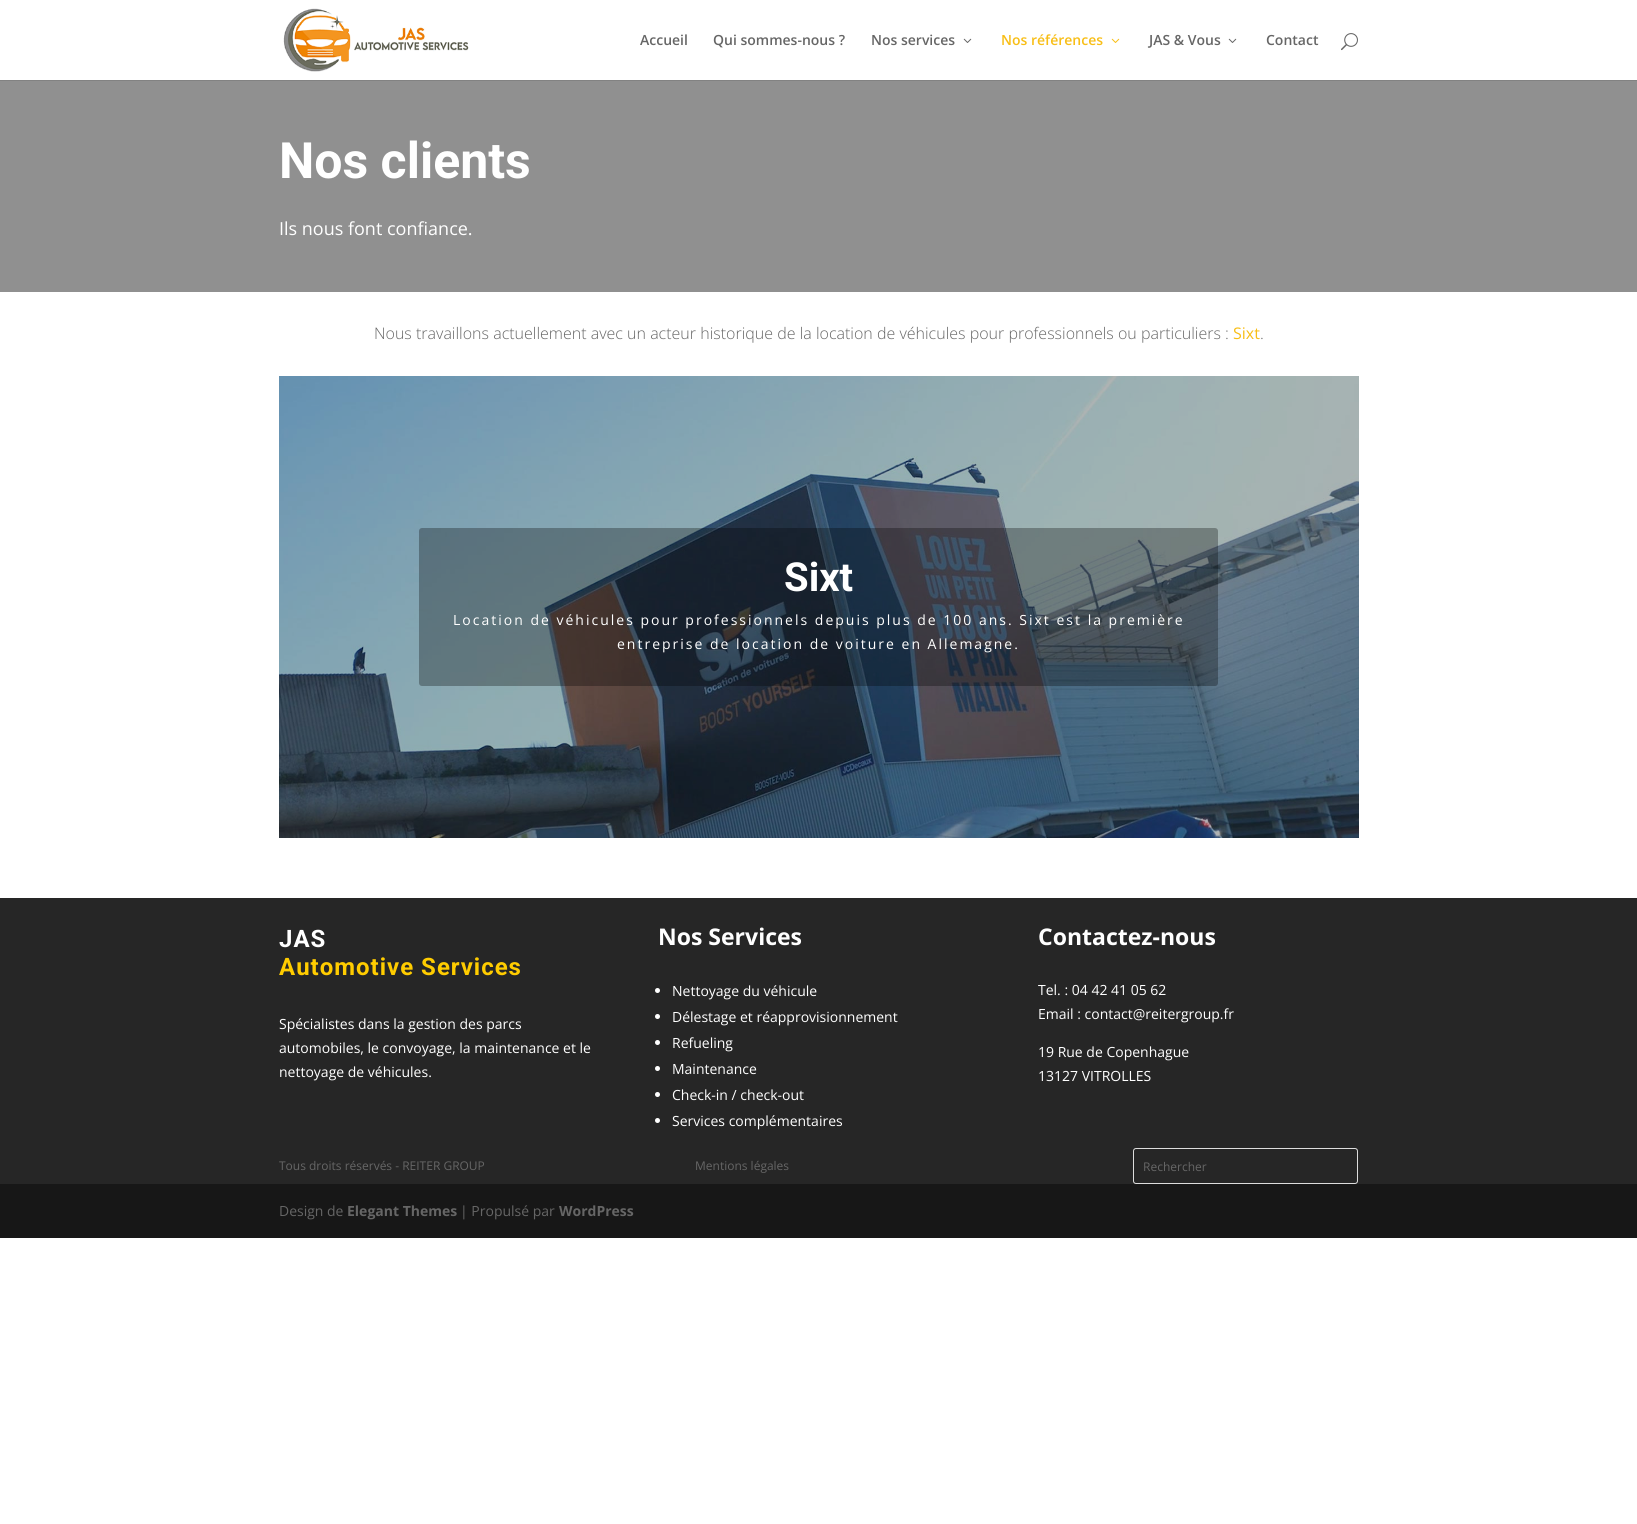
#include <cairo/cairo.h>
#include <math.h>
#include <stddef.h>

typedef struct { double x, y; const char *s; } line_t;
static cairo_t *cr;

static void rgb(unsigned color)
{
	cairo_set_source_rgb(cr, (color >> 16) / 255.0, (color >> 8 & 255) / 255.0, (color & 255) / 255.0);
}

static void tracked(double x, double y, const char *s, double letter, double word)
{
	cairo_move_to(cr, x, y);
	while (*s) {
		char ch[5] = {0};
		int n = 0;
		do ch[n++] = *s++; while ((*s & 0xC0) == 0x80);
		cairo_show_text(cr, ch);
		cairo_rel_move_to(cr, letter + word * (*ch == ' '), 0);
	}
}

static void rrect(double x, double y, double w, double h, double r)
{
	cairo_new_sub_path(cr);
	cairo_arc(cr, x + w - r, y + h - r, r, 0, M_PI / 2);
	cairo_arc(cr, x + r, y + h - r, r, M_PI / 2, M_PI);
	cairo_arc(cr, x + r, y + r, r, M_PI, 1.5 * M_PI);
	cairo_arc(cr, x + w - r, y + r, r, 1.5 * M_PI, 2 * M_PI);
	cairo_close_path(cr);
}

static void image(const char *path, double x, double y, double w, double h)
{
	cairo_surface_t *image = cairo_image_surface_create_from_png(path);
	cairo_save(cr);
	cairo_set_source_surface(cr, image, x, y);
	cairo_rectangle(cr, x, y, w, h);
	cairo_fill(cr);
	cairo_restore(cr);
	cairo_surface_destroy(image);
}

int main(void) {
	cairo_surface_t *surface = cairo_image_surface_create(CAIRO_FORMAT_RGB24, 1637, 1524);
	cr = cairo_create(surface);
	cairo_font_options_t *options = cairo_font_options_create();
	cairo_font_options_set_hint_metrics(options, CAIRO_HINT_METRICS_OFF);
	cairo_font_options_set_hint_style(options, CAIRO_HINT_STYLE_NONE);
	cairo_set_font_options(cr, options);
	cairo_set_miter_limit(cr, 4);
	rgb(0xffffff);
	cairo_paint(cr);
	rgb(0x828282);
	cairo_rectangle(cr, 0, 80, 1637, 1);
	cairo_fill(cr);
	image("img/1.png", 283, 8, 186, 64);
	image("img/2.png", 963, 38, 9, 5);
	image("img/3.png", 1111, 38, 9, 5);
	image("img/2.png", 1228, 38, 9, 5);
	image("img/4.png", 1341, 33, 17, 18);
	rgb(0x909090);
	cairo_rectangle(cr, 0, 81, 1637, 211);
	cairo_fill(cr);
	image("img/5.png", 279, 376, 1080, 462);
	cairo_set_source_rgba(cr, 0, 0, 0, 0.3);
	rrect(419, 528, 799, 158, 3);
	cairo_fill(cr);
	rgb(0x262626);
	cairo_rectangle(cr, 0, 898, 1637, 286);
	cairo_fill(cr);
	rgb(0xffffff);
	cairo_arc(cr, 657.5, 990.5, 2.5, 0, 2 * M_PI);
	cairo_fill(cr);
	cairo_arc(cr, 657.5, 1016.5, 2.5, 0, 2 * M_PI);
	cairo_fill(cr);
	cairo_arc(cr, 657.5, 1042.5, 2.5, 0, 2 * M_PI);
	cairo_fill(cr);
	cairo_arc(cr, 657.5, 1068.5, 2.5, 0, 2 * M_PI);
	cairo_fill(cr);
	cairo_arc(cr, 657.5, 1094.5, 2.5, 0, 2 * M_PI);
	cairo_fill(cr);
	cairo_arc(cr, 657.5, 1120.5, 2.5, 0, 2 * M_PI);
	cairo_fill(cr);
	rrect(1133.5, 1148.5, 224, 35, 2.5);
	rgb(0xdddddd);
	cairo_set_line_width(cr, 1);
	cairo_stroke(cr);
	rgb(0x171717);
	cairo_rectangle(cr, 0, 1184, 1637, 54);
	cairo_fill(cr);
	cairo_select_font_face(cr, "Open Sans SemiBold", CAIRO_FONT_SLANT_NORMAL, CAIRO_FONT_WEIGHT_NORMAL);
	cairo_set_font_size(cr, 14);
	rgb(0x666666);
	{
		static const line_t items[] = {
			{640, 45, "Accueil"},
			{713, 45, "Qui sommes-nous ?"},
			{871, 45, "Nos services"},
		};
		for (size_t i = 0; i < sizeof items / sizeof *items; i++) {
			cairo_move_to(cr, items[i].x, items[i].y);
			cairo_show_text(cr, items[i].s);
		}
	}
	rgb(0xf8be16);
	cairo_move_to(cr, 1001, 45);
	cairo_show_text(cr, "Nos références");
	rgb(0x666666);
	cairo_move_to(cr, 1149, 45);
	cairo_show_text(cr, "JAS & Vous");
	cairo_move_to(cr, 1266, 45);
	cairo_show_text(cr, "Contact");
	cairo_select_font_face(cr, "Roboto", CAIRO_FONT_SLANT_NORMAL, CAIRO_FONT_WEIGHT_BOLD);
	cairo_set_font_size(cr, 50);
	rgb(0xffffff);
	cairo_move_to(cr, 279, 178);
	cairo_show_text(cr, "Nos clients");
	cairo_select_font_face(cr, "Open Sans", CAIRO_FONT_SLANT_NORMAL, CAIRO_FONT_WEIGHT_NORMAL);
	cairo_set_font_size(cr, 18);
	cairo_move_to(cr, 279, 235);
	cairo_show_text(cr, "Ils nous font confiance.");
	cairo_select_font_face(cr, "Open Sans Light", CAIRO_FONT_SLANT_NORMAL, CAIRO_FONT_WEIGHT_NORMAL);
	cairo_set_font_size(cr, 16);
	rgb(0x666666);
	cairo_move_to(cr, 374, 339);
	cairo_show_text(cr, "Nous travaillons actuellement avec un acteur historique de la location de véhicules pour professionnels ou particuliers :");
	cairo_select_font_face(cr, "Open Sans", CAIRO_FONT_SLANT_NORMAL, CAIRO_FONT_WEIGHT_NORMAL);
	rgb(0xf8be16);
	cairo_move_to(cr, 1233, 339);
	cairo_show_text(cr, "Sixt");
	cairo_select_font_face(cr, "Open Sans Light", CAIRO_FONT_SLANT_NORMAL, CAIRO_FONT_WEIGHT_NORMAL);
	rgb(0x666666);
	cairo_move_to(cr, 1260, 339);
	cairo_show_text(cr, ".");
	cairo_select_font_face(cr, "Roboto", CAIRO_FONT_SLANT_NORMAL, CAIRO_FONT_WEIGHT_BOLD);
	cairo_set_font_size(cr, 40);
	rgb(0xffffff);
	cairo_move_to(cr, 784, 591);
	cairo_show_text(cr, "Sixt");
	cairo_select_font_face(cr, "Open Sans", CAIRO_FONT_SLANT_NORMAL, CAIRO_FONT_WEIGHT_NORMAL);
	cairo_set_font_size(cr, 14);
	tracked(453, 625, "Location de véhicules pour professionnels depuis plus de 100 ans. Sixt est la première", 2, 0);
	tracked(617, 649, "entreprise de location de voiture en Allemagne.", 2, 0);
	cairo_select_font_face(cr, "Roboto", CAIRO_FONT_SLANT_NORMAL, CAIRO_FONT_WEIGHT_BOLD);
	cairo_set_font_size(cr, 24);
	tracked(279, 947, "JAS", 1, 0);
	rgb(0xffcc00);
	tracked(279, 975, "Automotive Services", 1, 0);
	cairo_select_font_face(cr, "Open Sans", CAIRO_FONT_SLANT_NORMAL, CAIRO_FONT_WEIGHT_NORMAL);
	cairo_set_font_size(cr, 14);
	rgb(0xffffff);
	{
		static const line_t items[] = {
			{279, 1029, "Spécialistes dans la gestion des parcs"},
			{279, 1053, "automobiles, le convoyage, la maintenance et le"},
			{279, 1077, "nettoyage de véhicules."},
		};
		for (size_t i = 0; i < sizeof items / sizeof *items; i++) {
			cairo_move_to(cr, items[i].x, items[i].y);
			cairo_show_text(cr, items[i].s);
		}
	}
	cairo_select_font_face(cr, "Open Sans", CAIRO_FONT_SLANT_NORMAL, CAIRO_FONT_WEIGHT_BOLD);
	cairo_set_font_size(cr, 23);
	cairo_move_to(cr, 658, 945);
	cairo_show_text(cr, "Nos Services");
	cairo_select_font_face(cr, "Open Sans", CAIRO_FONT_SLANT_NORMAL, CAIRO_FONT_WEIGHT_NORMAL);
	cairo_set_font_size(cr, 14);
	{
		static const line_t items[] = {
			{672, 996, "Nettoyage du véhicule"},
			{672, 1022, "Délestage et réapprovisionnement"},
			{672, 1048, "Refueling"},
			{672, 1074, "Maintenance"},
			{672, 1100, "Check-in / check-out"},
			{672, 1126, "Services complémentaires"},
		};
		for (size_t i = 0; i < sizeof items / sizeof *items; i++) {
			cairo_move_to(cr, items[i].x, items[i].y);
			cairo_show_text(cr, items[i].s);
		}
	}
	cairo_select_font_face(cr, "Open Sans", CAIRO_FONT_SLANT_NORMAL, CAIRO_FONT_WEIGHT_BOLD);
	cairo_set_font_size(cr, 23);
	cairo_move_to(cr, 1038, 945);
	cairo_show_text(cr, "Contactez-nous");
	cairo_select_font_face(cr, "Open Sans", CAIRO_FONT_SLANT_NORMAL, CAIRO_FONT_WEIGHT_NORMAL);
	cairo_set_font_size(cr, 14);
	{
		static const line_t items[] = {
			{1038, 995, "Tel. : 04 42 41 05 62"},
			{1038, 1019, "Email : contact@reitergroup.fr"},
			{1038, 1057, "19 Rue de Copenhague"},
			{1038, 1081, "13127 VITROLLES"},
		};
		for (size_t i = 0; i < sizeof items / sizeof *items; i++) {
			cairo_move_to(cr, items[i].x, items[i].y);
			cairo_show_text(cr, items[i].s);
		}
	}
	cairo_set_font_size(cr, 12);
	rgb(0x666666);
	{
		static const line_t items[] = {
			{279, 1170, "Tous droits réservés - REITER GROUP"},
			{695, 1170, "Mentions légales"},
			{1143, 1171, "Rechercher"},
		};
		for (size_t i = 0; i < sizeof items / sizeof *items; i++) {
			cairo_move_to(cr, items[i].x, items[i].y);
			cairo_show_text(cr, items[i].s);
		}
	}
	cairo_set_font_size(cr, 14);
	cairo_move_to(cr, 279, 1216);
	cairo_show_text(cr, "Design de");
	cairo_select_font_face(cr, "Open Sans", CAIRO_FONT_SLANT_NORMAL, CAIRO_FONT_WEIGHT_BOLD);
	cairo_move_to(cr, 347, 1216);
	cairo_show_text(cr, "Elegant Themes");
	cairo_select_font_face(cr, "Open Sans", CAIRO_FONT_SLANT_NORMAL, CAIRO_FONT_WEIGHT_NORMAL);
	cairo_move_to(cr, 460, 1216);
	cairo_show_text(cr, "| Propulsé par");
	cairo_select_font_face(cr, "Open Sans", CAIRO_FONT_SLANT_NORMAL, CAIRO_FONT_WEIGHT_BOLD);
	cairo_move_to(cr, 559, 1216);
	cairo_show_text(cr, "WordPress");
	cairo_surface_write_to_png(surface, "page.png");
	cairo_font_options_destroy(options);
	cairo_destroy(cr);
	cairo_surface_destroy(surface);
	return 0;
}
